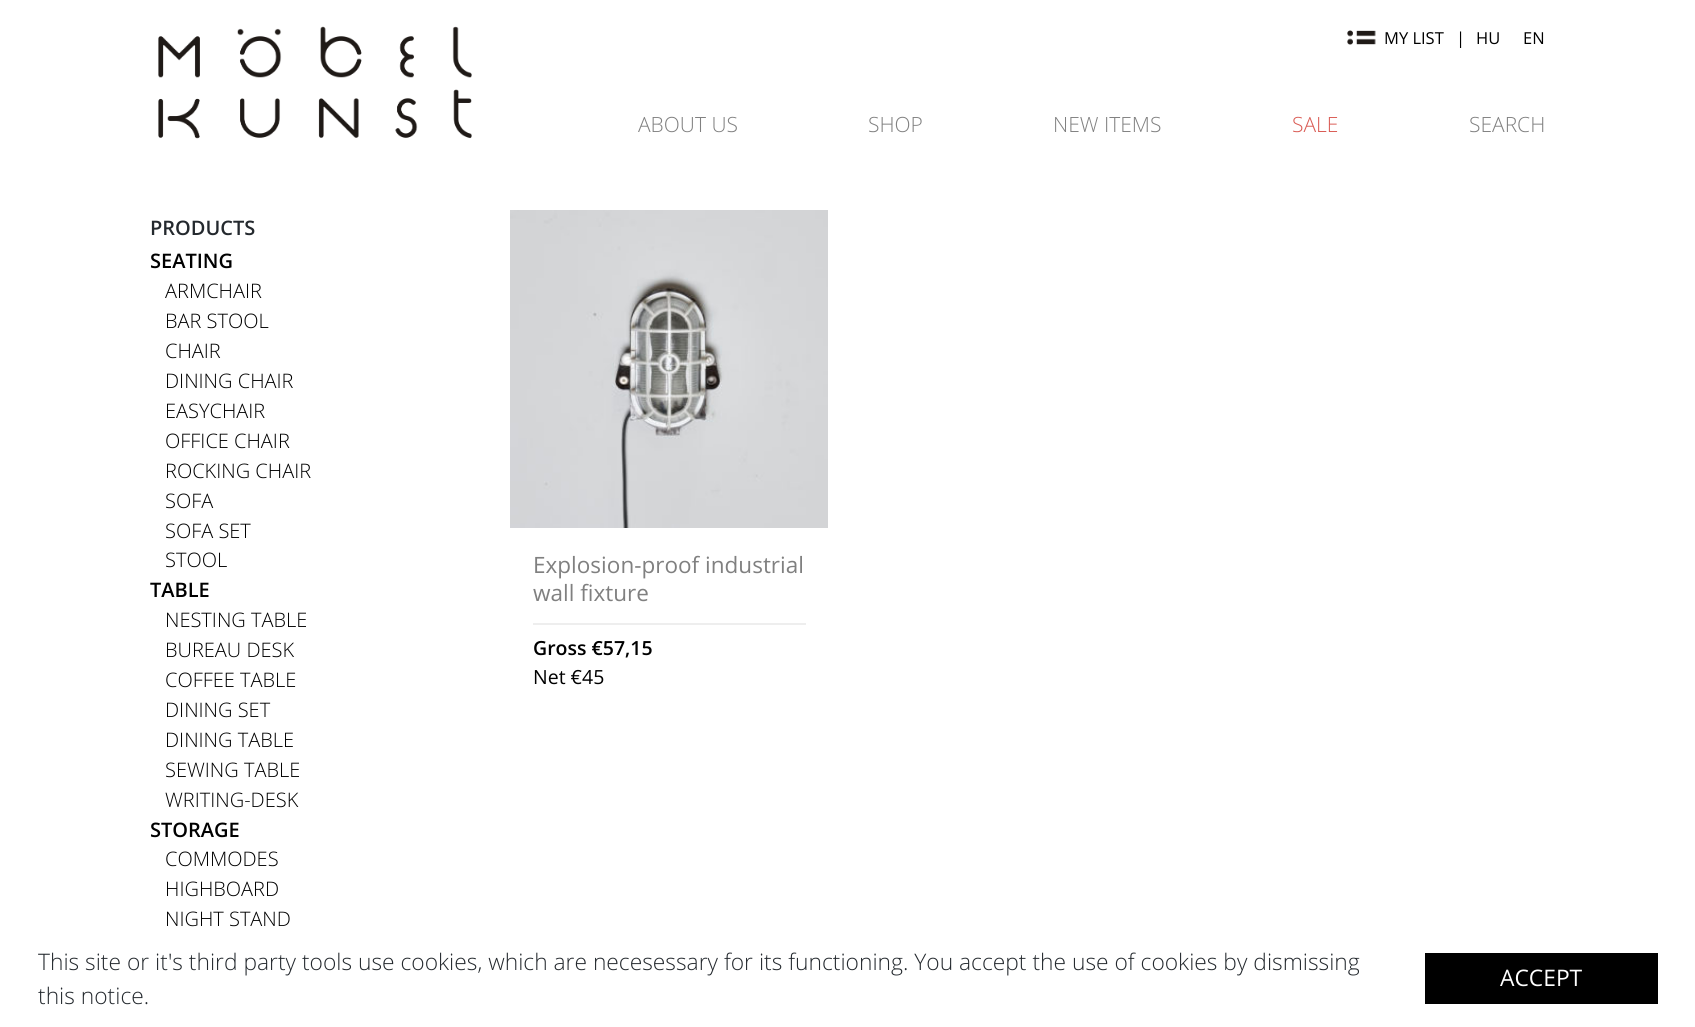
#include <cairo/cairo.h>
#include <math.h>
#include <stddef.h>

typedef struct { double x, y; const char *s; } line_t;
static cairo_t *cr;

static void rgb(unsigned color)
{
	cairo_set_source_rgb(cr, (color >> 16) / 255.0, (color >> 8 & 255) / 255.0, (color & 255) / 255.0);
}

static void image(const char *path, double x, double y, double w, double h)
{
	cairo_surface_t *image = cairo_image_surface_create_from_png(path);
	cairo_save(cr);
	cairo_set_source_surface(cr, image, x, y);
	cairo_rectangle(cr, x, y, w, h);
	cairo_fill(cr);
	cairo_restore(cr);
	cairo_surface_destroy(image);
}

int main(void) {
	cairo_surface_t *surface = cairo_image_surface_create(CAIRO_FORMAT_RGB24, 1695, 1027);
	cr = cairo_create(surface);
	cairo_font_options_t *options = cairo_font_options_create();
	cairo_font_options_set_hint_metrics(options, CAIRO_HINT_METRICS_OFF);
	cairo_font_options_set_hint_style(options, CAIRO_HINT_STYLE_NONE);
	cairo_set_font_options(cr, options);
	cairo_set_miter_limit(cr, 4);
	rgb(0xffffff);
	cairo_paint(cr);
	image("img/1.png", 158, 26, 314, 113);
	image("img/2.png", 1347, 30, 29, 15);
	image("img/3.png", 510, 210, 318, 318);
	rgb(0xeeeeee);
	cairo_rectangle(cr, 533, 623, 273, 2);
	cairo_fill(cr);
	rgb(0x000000);
	cairo_rectangle(cr, 1425, 953, 233, 51);
	cairo_fill(cr);
	cairo_select_font_face(cr, "Open Sans", CAIRO_FONT_SLANT_NORMAL, CAIRO_FONT_WEIGHT_NORMAL);
	cairo_set_font_size(cr, 16.5);
	{
		static const line_t items[] = {
			{1384, 44, "MY LIST"},
			{1456, 44, "|"},
			{1476, 44, "HU"},
			{1523, 44, "EN"},
		};
		for (size_t i = 0; i < sizeof items / sizeof *items; i++) {
			cairo_move_to(cr, items[i].x, items[i].y);
			cairo_show_text(cr, items[i].s);
		}
	}
	cairo_select_font_face(cr, "Open Sans Light", CAIRO_FONT_SLANT_NORMAL, CAIRO_FONT_WEIGHT_NORMAL);
	cairo_set_font_size(cr, 21);
	rgb(0x808080);
	{
		static const line_t items[] = {
			{638, 132, "ABOUT US"},
			{868, 132, "SHOP"},
			{1053, 132, "NEW ITEMS"},
		};
		for (size_t i = 0; i < sizeof items / sizeof *items; i++) {
			cairo_move_to(cr, items[i].x, items[i].y);
			cairo_show_text(cr, items[i].s);
		}
	}
	rgb(0xd95a53);
	cairo_move_to(cr, 1292, 132);
	cairo_show_text(cr, "SALE");
	rgb(0x808080);
	cairo_move_to(cr, 1469, 132);
	cairo_show_text(cr, "SEARCH");
	cairo_select_font_face(cr, "Open Sans SemiBold", CAIRO_FONT_SLANT_NORMAL, CAIRO_FONT_WEIGHT_NORMAL);
	cairo_set_font_size(cr, 20);
	rgb(0x24292e);
	cairo_move_to(cr, 150, 235);
	cairo_show_text(cr, "PRODUCTS");
	rgb(0x000000);
	cairo_move_to(cr, 150, 268);
	cairo_show_text(cr, "SEATING");
	cairo_select_font_face(cr, "Open Sans Light", CAIRO_FONT_SLANT_NORMAL, CAIRO_FONT_WEIGHT_NORMAL);
	{
		static const line_t items[] = {
			{165, 298, "ARMCHAIR"},
			{165, 328, "BAR STOOL"},
			{165, 358, "CHAIR"},
			{165, 388, "DINING CHAIR"},
			{165, 418, "EASYCHAIR"},
			{165, 448, "OFFICE CHAIR"},
			{165, 478, "ROCKING CHAIR"},
			{165, 508, "SOFA"},
			{165, 538, "SOFA SET"},
			{165, 567, "STOOL"},
		};
		for (size_t i = 0; i < sizeof items / sizeof *items; i++) {
			cairo_move_to(cr, items[i].x, items[i].y);
			cairo_show_text(cr, items[i].s);
		}
	}
	cairo_select_font_face(cr, "Open Sans SemiBold", CAIRO_FONT_SLANT_NORMAL, CAIRO_FONT_WEIGHT_NORMAL);
	cairo_move_to(cr, 150, 597);
	cairo_show_text(cr, "TABLE");
	cairo_select_font_face(cr, "Open Sans Light", CAIRO_FONT_SLANT_NORMAL, CAIRO_FONT_WEIGHT_NORMAL);
	{
		static const line_t items[] = {
			{165, 627, "NESTING TABLE"},
			{165, 657, "BUREAU DESK"},
			{165, 687, "COFFEE TABLE"},
			{165, 717, "DINING SET"},
			{165, 747, "DINING TABLE"},
			{165, 777, "SEWING TABLE"},
			{165, 807, "WRITING-DESK"},
		};
		for (size_t i = 0; i < sizeof items / sizeof *items; i++) {
			cairo_move_to(cr, items[i].x, items[i].y);
			cairo_show_text(cr, items[i].s);
		}
	}
	cairo_select_font_face(cr, "Open Sans SemiBold", CAIRO_FONT_SLANT_NORMAL, CAIRO_FONT_WEIGHT_NORMAL);
	cairo_move_to(cr, 150, 837);
	cairo_show_text(cr, "STORAGE");
	cairo_select_font_face(cr, "Open Sans Light", CAIRO_FONT_SLANT_NORMAL, CAIRO_FONT_WEIGHT_NORMAL);
	{
		static const line_t items[] = {
			{165, 866, "COMMODES"},
			{165, 896, "HIGHBOARD"},
			{165, 926, "NIGHT STAND"},
		};
		for (size_t i = 0; i < sizeof items / sizeof *items; i++) {
			cairo_move_to(cr, items[i].x, items[i].y);
			cairo_show_text(cr, items[i].s);
		}
	}
	cairo_select_font_face(cr, "Open Sans", CAIRO_FONT_SLANT_NORMAL, CAIRO_FONT_WEIGHT_NORMAL);
	cairo_set_font_size(cr, 22.5);
	rgb(0x808080);
	cairo_move_to(cr, 533, 573);
	cairo_show_text(cr, "Explosion-proof industrial");
	cairo_move_to(cr, 533, 601);
	cairo_show_text(cr, "wall fixture");
	cairo_select_font_face(cr, "Open Sans SemiBold", CAIRO_FONT_SLANT_NORMAL, CAIRO_FONT_WEIGHT_NORMAL);
	cairo_set_font_size(cr, 19.5);
	rgb(0x000000);
	cairo_move_to(cr, 533, 655);
	cairo_show_text(cr, "Gross €57,15");
	cairo_select_font_face(cr, "Open Sans", CAIRO_FONT_SLANT_NORMAL, CAIRO_FONT_WEIGHT_NORMAL);
	cairo_move_to(cr, 533, 684);
	cairo_show_text(cr, "Net €45");
	cairo_select_font_face(cr, "Open Sans Light", CAIRO_FONT_SLANT_NORMAL, CAIRO_FONT_WEIGHT_NORMAL);
	cairo_set_font_size(cr, 22.8);
	rgb(0x24292e);
	cairo_move_to(cr, 38, 970);
	cairo_show_text(cr, "This site or it's third party tools use cookies, which are necesessary for its functioning. You accept the use of cookies by dismissing");
	cairo_move_to(cr, 38, 1004);
	cairo_show_text(cr, "this notice.");
	cairo_select_font_face(cr, "Open Sans", CAIRO_FONT_SLANT_NORMAL, CAIRO_FONT_WEIGHT_NORMAL);
	rgb(0xffffff);
	cairo_move_to(cr, 1500, 986);
	cairo_show_text(cr, "ACCEPT");
	cairo_surface_write_to_png(surface, "page.png");
	cairo_font_options_destroy(options);
	cairo_destroy(cr);
	cairo_surface_destroy(surface);
	return 0;
}
